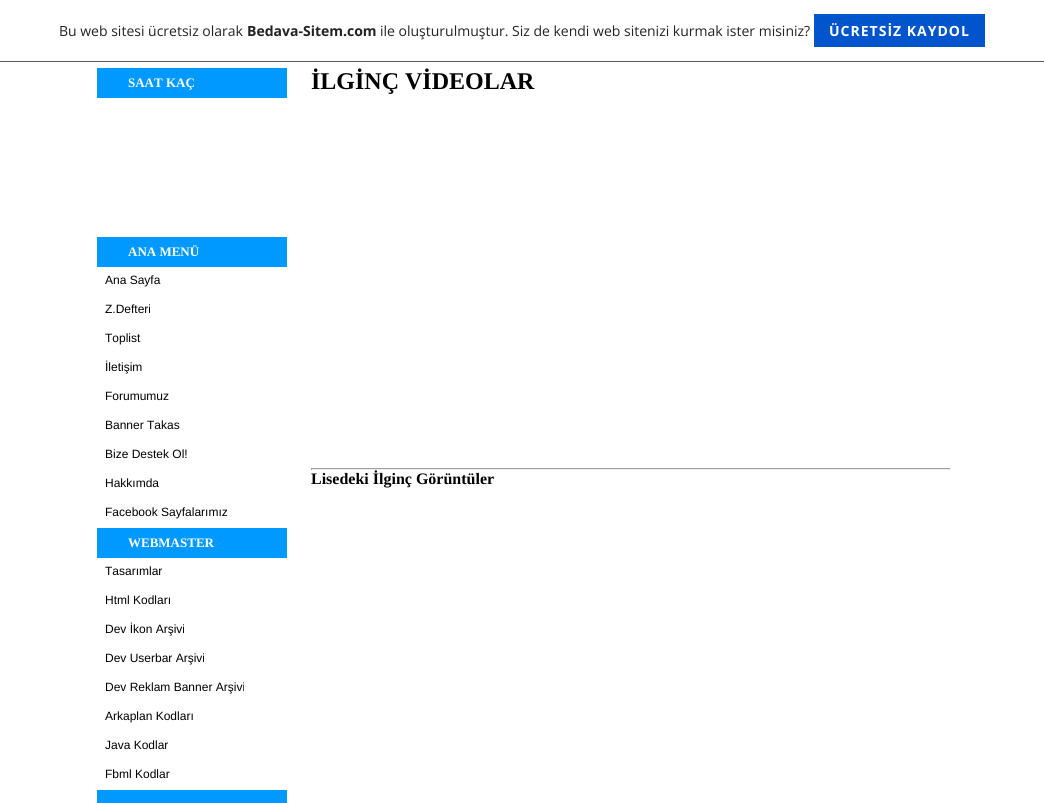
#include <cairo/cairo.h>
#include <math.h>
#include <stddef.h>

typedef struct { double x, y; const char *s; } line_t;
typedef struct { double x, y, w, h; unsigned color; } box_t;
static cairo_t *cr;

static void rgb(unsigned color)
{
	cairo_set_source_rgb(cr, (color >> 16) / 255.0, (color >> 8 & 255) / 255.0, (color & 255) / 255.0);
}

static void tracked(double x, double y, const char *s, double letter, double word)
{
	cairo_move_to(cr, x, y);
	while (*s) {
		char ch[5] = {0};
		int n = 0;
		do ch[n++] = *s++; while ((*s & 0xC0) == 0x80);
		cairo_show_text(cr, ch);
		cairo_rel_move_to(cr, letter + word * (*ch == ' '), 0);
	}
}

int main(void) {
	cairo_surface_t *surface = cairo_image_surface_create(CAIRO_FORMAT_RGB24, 1044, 803);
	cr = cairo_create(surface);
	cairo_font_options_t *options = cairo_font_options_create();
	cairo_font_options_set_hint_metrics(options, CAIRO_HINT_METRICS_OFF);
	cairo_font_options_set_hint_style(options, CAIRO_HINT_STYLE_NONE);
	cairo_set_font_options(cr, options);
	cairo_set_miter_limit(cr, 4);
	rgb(0xffffff);
	cairo_paint(cr);
	{
		static const box_t items[] = {
			{0, 61, 1044, 1, 0x5a5a5a},
			{814, 14, 171, 33, 0x0055cc},
			{97, 68, 190, 30, 0x0099ff},
			{97, 237, 190, 30, 0x0099ff},
			{97, 528, 190, 30, 0x0099ff},
			{97, 790, 190, 13, 0x0099ff},
			{311, 468, 640, 1, 0x9f9f9f},
			{950, 468, 1, 2, 0xeeeeee},
			{311, 469, 640, 1, 0xeeeeee},
			{311, 468, 1, 2, 0x9f9f9f},
		};
		for (size_t i = 0; i < sizeof items / sizeof *items; i++) {
			rgb(items[i].color);
			cairo_rectangle(cr, items[i].x, items[i].y, items[i].w, items[i].h);
			cairo_fill(cr);
		}
	}
	cairo_select_font_face(cr, "Open Sans", CAIRO_FONT_SLANT_NORMAL, CAIRO_FONT_WEIGHT_NORMAL);
	cairo_set_font_size(cr, 14);
	rgb(0x232323);
	cairo_move_to(cr, 59, 36);
	cairo_show_text(cr, "Bu web sitesi ücretsiz olarak");
	cairo_select_font_face(cr, "Open Sans", CAIRO_FONT_SLANT_NORMAL, CAIRO_FONT_WEIGHT_BOLD);
	cairo_move_to(cr, 247, 36);
	cairo_show_text(cr, "Bedava-Sitem.com");
	cairo_select_font_face(cr, "Open Sans", CAIRO_FONT_SLANT_NORMAL, CAIRO_FONT_WEIGHT_NORMAL);
	cairo_move_to(cr, 380, 36);
	cairo_show_text(cr, "ile oluşturulmuştur. Siz de kendi web sitenizi kurmak ister misiniz?");
	cairo_select_font_face(cr, "Open Sans", CAIRO_FONT_SLANT_NORMAL, CAIRO_FONT_WEIGHT_BOLD);
	rgb(0xffffff);
	tracked(829, 36, "ÜCRETSİZ KAYDOL", 1, 0);
	cairo_select_font_face(cr, "Liberation Serif", CAIRO_FONT_SLANT_NORMAL, CAIRO_FONT_WEIGHT_BOLD);
	cairo_set_font_size(cr, 13);
	cairo_move_to(cr, 128, 87);
	cairo_show_text(cr, "SAAT KAÇ");
	cairo_move_to(cr, 128, 256);
	cairo_show_text(cr, "ANA MENÜ");
	cairo_select_font_face(cr, "Liberation Sans", CAIRO_FONT_SLANT_NORMAL, CAIRO_FONT_WEIGHT_NORMAL);
	cairo_set_font_size(cr, 12);
	rgb(0x000000);
	{
		static const line_t items[] = {
			{105, 284, "Ana Sayfa"},
			{105, 313, "Z.Defteri"},
			{105, 342, "Toplist"},
			{105, 371, "İletişim"},
			{105, 400, "Forumumuz"},
			{105, 429, "Banner Takas"},
			{105, 458, "Bize Destek Ol!"},
			{105, 487, "Hakkımda"},
			{105, 516, "Facebook Sayfalarımız"},
		};
		for (size_t i = 0; i < sizeof items / sizeof *items; i++) {
			cairo_move_to(cr, items[i].x, items[i].y);
			cairo_show_text(cr, items[i].s);
		}
	}
	cairo_select_font_face(cr, "Liberation Serif", CAIRO_FONT_SLANT_NORMAL, CAIRO_FONT_WEIGHT_BOLD);
	cairo_set_font_size(cr, 13);
	rgb(0xffffff);
	cairo_move_to(cr, 128, 547);
	cairo_show_text(cr, "WEBMASTER");
	cairo_select_font_face(cr, "Liberation Sans", CAIRO_FONT_SLANT_NORMAL, CAIRO_FONT_WEIGHT_NORMAL);
	cairo_set_font_size(cr, 12);
	rgb(0x000000);
	{
		static const line_t items[] = {
			{105, 575, "Tasarımlar"},
			{105, 604, "Html Kodları"},
			{105, 633, "Dev İkon Arşivi"},
			{105, 662, "Dev Userbar Arşivi"},
			{105, 691, "Dev Reklam Banner Arşivi"},
			{105, 720, "Arkaplan Kodları"},
			{105, 749, "Java Kodlar"},
			{105, 778, "Fbml Kodlar"},
		};
		for (size_t i = 0; i < sizeof items / sizeof *items; i++) {
			cairo_move_to(cr, items[i].x, items[i].y);
			cairo_show_text(cr, items[i].s);
		}
	}
	cairo_select_font_face(cr, "Liberation Serif", CAIRO_FONT_SLANT_NORMAL, CAIRO_FONT_WEIGHT_BOLD);
	cairo_set_font_size(cr, 24);
	cairo_move_to(cr, 311, 89);
	cairo_show_text(cr, "İLGİNÇ VİDEOLAR");
	cairo_set_font_size(cr, 16);
	cairo_move_to(cr, 311, 484);
	cairo_show_text(cr, "Lisedeki İlginç Görüntüler");
	cairo_surface_write_to_png(surface, "page.png");
	cairo_font_options_destroy(options);
	cairo_destroy(cr);
	cairo_surface_destroy(surface);
	return 0;
}
